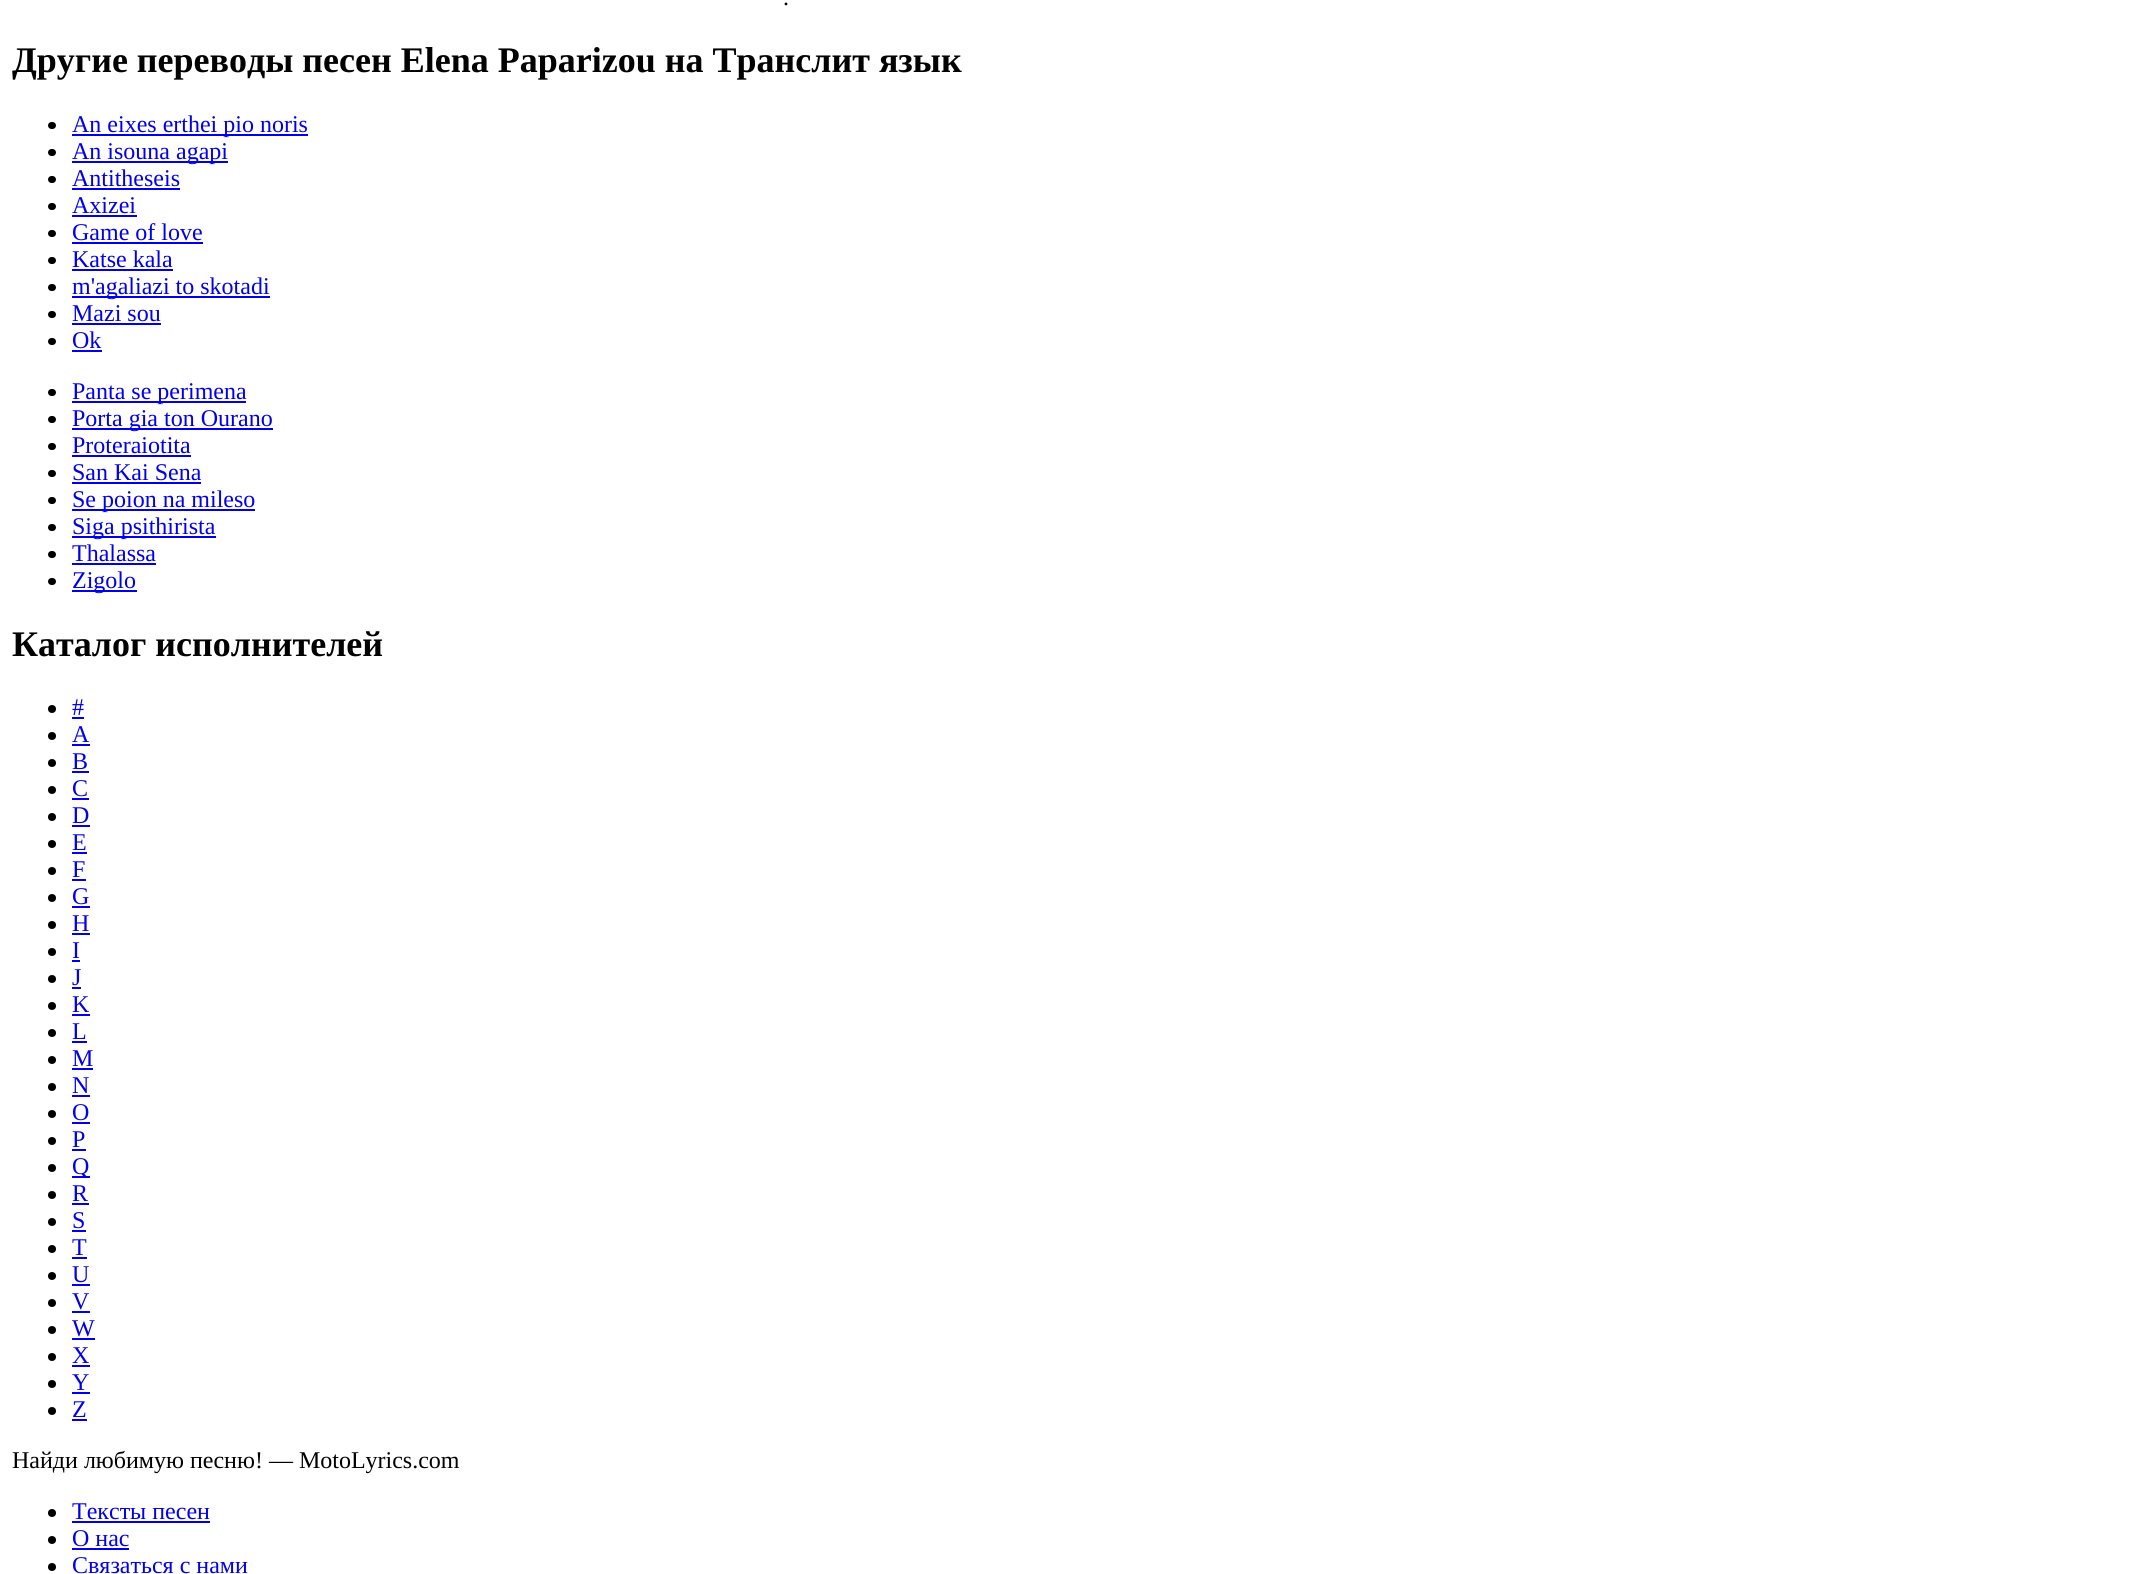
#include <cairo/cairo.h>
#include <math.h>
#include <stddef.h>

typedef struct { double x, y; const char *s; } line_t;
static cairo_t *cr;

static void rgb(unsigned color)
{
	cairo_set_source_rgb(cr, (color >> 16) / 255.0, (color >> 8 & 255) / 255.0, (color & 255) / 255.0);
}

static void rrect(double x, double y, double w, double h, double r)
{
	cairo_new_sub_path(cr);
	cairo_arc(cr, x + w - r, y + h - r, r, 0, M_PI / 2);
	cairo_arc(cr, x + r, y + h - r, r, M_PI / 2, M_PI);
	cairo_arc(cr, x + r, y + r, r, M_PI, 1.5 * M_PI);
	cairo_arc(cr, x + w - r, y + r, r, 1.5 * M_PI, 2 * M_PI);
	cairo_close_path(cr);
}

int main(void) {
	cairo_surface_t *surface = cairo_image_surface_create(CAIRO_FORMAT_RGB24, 2139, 1574);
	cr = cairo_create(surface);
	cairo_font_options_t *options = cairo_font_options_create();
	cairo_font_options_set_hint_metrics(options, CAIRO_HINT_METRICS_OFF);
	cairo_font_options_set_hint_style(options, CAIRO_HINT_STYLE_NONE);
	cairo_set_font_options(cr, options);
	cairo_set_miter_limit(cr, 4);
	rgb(0xffffff);
	cairo_paint(cr);
	rgb(0x000000);
	rrect(48, 122, 8, 7, 3.5);
	cairo_fill(cr);
	rgb(0x0000ee);
	cairo_rectangle(cr, 72, 134, 236, 2);
	cairo_fill(cr);
	rgb(0x000000);
	rrect(48, 149, 8, 7, 3.5);
	cairo_fill(cr);
	rgb(0x0000ee);
	cairo_rectangle(cr, 72, 161, 156, 2);
	cairo_fill(cr);
	rgb(0x000000);
	rrect(48, 176, 8, 7, 3.5);
	cairo_fill(cr);
	rgb(0x0000ee);
	cairo_rectangle(cr, 72, 188, 108, 2);
	cairo_fill(cr);
	rgb(0x000000);
	rrect(48, 203, 8, 7, 3.5);
	cairo_fill(cr);
	rgb(0x0000ee);
	cairo_rectangle(cr, 72, 215, 65, 2);
	cairo_fill(cr);
	rgb(0x000000);
	rrect(48, 230, 8, 7, 3.5);
	cairo_fill(cr);
	rgb(0x0000ee);
	cairo_rectangle(cr, 72, 242, 131, 2);
	cairo_fill(cr);
	rgb(0x000000);
	rrect(48, 257, 8, 7, 3.5);
	cairo_fill(cr);
	rgb(0x0000ee);
	cairo_rectangle(cr, 72, 269, 101, 2);
	cairo_fill(cr);
	rgb(0x000000);
	rrect(48, 284, 8, 7, 3.5);
	cairo_fill(cr);
	rgb(0x0000ee);
	cairo_rectangle(cr, 72, 296, 198, 2);
	cairo_fill(cr);
	rgb(0x000000);
	rrect(48, 311, 8, 7, 3.5);
	cairo_fill(cr);
	rgb(0x0000ee);
	cairo_rectangle(cr, 72, 323, 89, 2);
	cairo_fill(cr);
	rgb(0x000000);
	rrect(48, 338, 8, 7, 3.5);
	cairo_fill(cr);
	rgb(0x0000ee);
	cairo_rectangle(cr, 72, 350, 30, 2);
	cairo_fill(cr);
	rgb(0x000000);
	rrect(48, 389, 8, 7, 3.5);
	cairo_fill(cr);
	rgb(0x0000ee);
	cairo_rectangle(cr, 72, 401, 174, 2);
	cairo_fill(cr);
	rgb(0x000000);
	rrect(48, 416, 8, 7, 3.5);
	cairo_fill(cr);
	rgb(0x0000ee);
	cairo_rectangle(cr, 72, 428, 201, 2);
	cairo_fill(cr);
	rgb(0x000000);
	rrect(48, 443, 8, 7, 3.5);
	cairo_fill(cr);
	rgb(0x0000ee);
	cairo_rectangle(cr, 72, 455, 119, 2);
	cairo_fill(cr);
	rgb(0x000000);
	rrect(48, 470, 8, 7, 3.5);
	cairo_fill(cr);
	rgb(0x0000ee);
	cairo_rectangle(cr, 72, 482, 129, 2);
	cairo_fill(cr);
	rgb(0x000000);
	rrect(48, 497, 8, 7, 3.5);
	cairo_fill(cr);
	rgb(0x0000ee);
	cairo_rectangle(cr, 72, 509, 183, 2);
	cairo_fill(cr);
	rgb(0x000000);
	rrect(48, 524, 8, 7, 3.5);
	cairo_fill(cr);
	rgb(0x0000ee);
	cairo_rectangle(cr, 72, 536, 144, 2);
	cairo_fill(cr);
	rgb(0x000000);
	rrect(48, 551, 8, 7, 3.5);
	cairo_fill(cr);
	rgb(0x0000ee);
	cairo_rectangle(cr, 72, 563, 84, 2);
	cairo_fill(cr);
	rgb(0x000000);
	rrect(48, 578, 8, 7, 3.5);
	cairo_fill(cr);
	rgb(0x0000ee);
	cairo_rectangle(cr, 72, 590, 65, 2);
	cairo_fill(cr);
	rgb(0x000000);
	cairo_arc(cr, 52, 709, 4, 0, 2 * M_PI);
	cairo_fill(cr);
	rgb(0x0000ee);
	cairo_rectangle(cr, 72, 717, 12, 2);
	cairo_fill(cr);
	rgb(0x000000);
	cairo_arc(cr, 52, 736, 4, 0, 2 * M_PI);
	cairo_fill(cr);
	rgb(0x0000ee);
	cairo_rectangle(cr, 72, 744, 18, 2);
	cairo_fill(cr);
	rgb(0x000000);
	cairo_arc(cr, 52, 763, 4, 0, 2 * M_PI);
	cairo_fill(cr);
	rgb(0x0000ee);
	cairo_rectangle(cr, 72, 771, 17, 2);
	cairo_fill(cr);
	rgb(0x000000);
	cairo_arc(cr, 52, 790, 4, 0, 2 * M_PI);
	cairo_fill(cr);
	rgb(0x0000ee);
	cairo_rectangle(cr, 72, 798, 17, 2);
	cairo_fill(cr);
	rgb(0x000000);
	cairo_arc(cr, 52, 817, 4, 0, 2 * M_PI);
	cairo_fill(cr);
	rgb(0x0000ee);
	cairo_rectangle(cr, 72, 825, 18, 2);
	cairo_fill(cr);
	rgb(0x000000);
	cairo_arc(cr, 52, 844, 4, 0, 2 * M_PI);
	cairo_fill(cr);
	rgb(0x0000ee);
	cairo_rectangle(cr, 72, 852, 15, 2);
	cairo_fill(cr);
	rgb(0x000000);
	cairo_arc(cr, 52, 871, 4, 0, 2 * M_PI);
	cairo_fill(cr);
	rgb(0x0000ee);
	cairo_rectangle(cr, 72, 879, 14, 2);
	cairo_fill(cr);
	rgb(0x000000);
	cairo_arc(cr, 52, 898, 4, 0, 2 * M_PI);
	cairo_fill(cr);
	rgb(0x0000ee);
	cairo_rectangle(cr, 72, 906, 18, 2);
	cairo_fill(cr);
	rgb(0x000000);
	cairo_arc(cr, 52, 925, 4, 0, 2 * M_PI);
	cairo_fill(cr);
	rgb(0x0000ee);
	cairo_rectangle(cr, 72, 933, 18, 2);
	cairo_fill(cr);
	rgb(0x000000);
	cairo_arc(cr, 52, 952, 4, 0, 2 * M_PI);
	cairo_fill(cr);
	rgb(0x0000ee);
	cairo_rectangle(cr, 72, 960, 8, 2);
	cairo_fill(cr);
	rgb(0x000000);
	cairo_arc(cr, 52, 979, 4, 0, 2 * M_PI);
	cairo_fill(cr);
	rgb(0x0000ee);
	cairo_rectangle(cr, 72, 987, 9, 2);
	cairo_fill(cr);
	rgb(0x000000);
	cairo_arc(cr, 52, 1006, 4, 0, 2 * M_PI);
	cairo_fill(cr);
	rgb(0x0000ee);
	cairo_rectangle(cr, 72, 1014, 18, 2);
	cairo_fill(cr);
	rgb(0x000000);
	cairo_arc(cr, 52, 1033, 4, 0, 2 * M_PI);
	cairo_fill(cr);
	rgb(0x0000ee);
	cairo_rectangle(cr, 72, 1041, 15, 2);
	cairo_fill(cr);
	rgb(0x000000);
	cairo_arc(cr, 52, 1060, 4, 0, 2 * M_PI);
	cairo_fill(cr);
	rgb(0x0000ee);
	cairo_rectangle(cr, 72, 1068, 21, 2);
	cairo_fill(cr);
	rgb(0x000000);
	cairo_arc(cr, 52, 1087, 4, 0, 2 * M_PI);
	cairo_fill(cr);
	rgb(0x0000ee);
	cairo_rectangle(cr, 72, 1095, 18, 2);
	cairo_fill(cr);
	rgb(0x000000);
	cairo_arc(cr, 52, 1114, 4, 0, 2 * M_PI);
	cairo_fill(cr);
	rgb(0x0000ee);
	cairo_rectangle(cr, 72, 1122, 18, 2);
	cairo_fill(cr);
	rgb(0x000000);
	cairo_arc(cr, 52, 1141, 4, 0, 2 * M_PI);
	cairo_fill(cr);
	rgb(0x0000ee);
	cairo_rectangle(cr, 72, 1149, 14, 2);
	cairo_fill(cr);
	rgb(0x000000);
	cairo_arc(cr, 52, 1168, 4, 0, 2 * M_PI);
	cairo_fill(cr);
	rgb(0x0000ee);
	cairo_rectangle(cr, 72, 1176, 18, 2);
	cairo_fill(cr);
	rgb(0x000000);
	cairo_arc(cr, 52, 1195, 4, 0, 2 * M_PI);
	cairo_fill(cr);
	rgb(0x0000ee);
	cairo_rectangle(cr, 72, 1203, 17, 2);
	cairo_fill(cr);
	rgb(0x000000);
	cairo_arc(cr, 52, 1222, 4, 0, 2 * M_PI);
	cairo_fill(cr);
	rgb(0x0000ee);
	cairo_rectangle(cr, 72, 1230, 14, 2);
	cairo_fill(cr);
	rgb(0x000000);
	cairo_arc(cr, 52, 1249, 4, 0, 2 * M_PI);
	cairo_fill(cr);
	rgb(0x0000ee);
	cairo_rectangle(cr, 72, 1257, 15, 2);
	cairo_fill(cr);
	rgb(0x000000);
	cairo_arc(cr, 52, 1276, 4, 0, 2 * M_PI);
	cairo_fill(cr);
	rgb(0x0000ee);
	cairo_rectangle(cr, 72, 1284, 18, 2);
	cairo_fill(cr);
	rgb(0x000000);
	cairo_arc(cr, 52, 1303, 4, 0, 2 * M_PI);
	cairo_fill(cr);
	rgb(0x0000ee);
	cairo_rectangle(cr, 72, 1311, 18, 2);
	cairo_fill(cr);
	rgb(0x000000);
	cairo_arc(cr, 52, 1330, 4, 0, 2 * M_PI);
	cairo_fill(cr);
	rgb(0x0000ee);
	cairo_rectangle(cr, 72, 1338, 23, 2);
	cairo_fill(cr);
	rgb(0x000000);
	cairo_arc(cr, 52, 1357, 4, 0, 2 * M_PI);
	cairo_fill(cr);
	rgb(0x0000ee);
	cairo_rectangle(cr, 72, 1365, 18, 2);
	cairo_fill(cr);
	rgb(0x000000);
	cairo_arc(cr, 52, 1384, 4, 0, 2 * M_PI);
	cairo_fill(cr);
	rgb(0x0000ee);
	cairo_rectangle(cr, 72, 1392, 18, 2);
	cairo_fill(cr);
	rgb(0x000000);
	cairo_arc(cr, 52, 1411, 4, 0, 2 * M_PI);
	cairo_fill(cr);
	rgb(0x0000ee);
	cairo_rectangle(cr, 72, 1419, 15, 2);
	cairo_fill(cr);
	rgb(0x000000);
	cairo_arc(cr, 52, 1513, 4, 0, 2 * M_PI);
	cairo_fill(cr);
	rgb(0x0000ee);
	cairo_rectangle(cr, 72, 1521, 138, 2);
	cairo_fill(cr);
	rgb(0x000000);
	cairo_arc(cr, 52, 1540, 4, 0, 2 * M_PI);
	cairo_fill(cr);
	rgb(0x0000ee);
	cairo_rectangle(cr, 72, 1548, 57, 2);
	cairo_fill(cr);
	rgb(0x000000);
	cairo_arc(cr, 52, 1567, 4, 0, 2 * M_PI);
	cairo_fill(cr);
	cairo_select_font_face(cr, "Liberation Serif", CAIRO_FONT_SLANT_NORMAL, CAIRO_FONT_WEIGHT_NORMAL);
	cairo_set_font_size(cr, 24);
	cairo_move_to(cr, 783, 5);
	cairo_show_text(cr, ".");
	cairo_select_font_face(cr, "Liberation Serif", CAIRO_FONT_SLANT_NORMAL, CAIRO_FONT_WEIGHT_BOLD);
	cairo_set_font_size(cr, 36);
	cairo_move_to(cr, 12, 72);
	cairo_show_text(cr, "Другие переводы песен Elena Paparizou на Транслит язык");
	cairo_select_font_face(cr, "Liberation Serif", CAIRO_FONT_SLANT_NORMAL, CAIRO_FONT_WEIGHT_NORMAL);
	cairo_set_font_size(cr, 24);
	rgb(0x0000ee);
	{
		static const line_t items[] = {
			{72, 132, "An eixes erthei pio noris"},
			{72, 159, "An isouna agapi"},
			{72, 186, "Antitheseis"},
			{72, 213, "Axizei"},
			{72, 240, "Game of love"},
			{72, 267, "Katse kala"},
			{72, 294, "m'agaliazi to skotadi"},
			{72, 321, "Mazi sou"},
			{72, 348, "Ok"},
			{72, 399, "Panta se perimena"},
			{72, 426, "Porta gia ton Ourano"},
			{72, 453, "Proteraiotita"},
			{72, 480, "San Kai Sena"},
			{72, 507, "Se poion na mileso"},
			{72, 534, "Siga psithirista"},
			{72, 561, "Thalassa"},
			{72, 588, "Zigolo"},
		};
		for (size_t i = 0; i < sizeof items / sizeof *items; i++) {
			cairo_move_to(cr, items[i].x, items[i].y);
			cairo_show_text(cr, items[i].s);
		}
	}
	cairo_select_font_face(cr, "Liberation Serif", CAIRO_FONT_SLANT_NORMAL, CAIRO_FONT_WEIGHT_BOLD);
	cairo_set_font_size(cr, 36);
	rgb(0x000000);
	cairo_move_to(cr, 12, 656);
	cairo_show_text(cr, "Каталог исполнителей");
	cairo_select_font_face(cr, "Liberation Serif", CAIRO_FONT_SLANT_NORMAL, CAIRO_FONT_WEIGHT_NORMAL);
	cairo_set_font_size(cr, 24);
	rgb(0x0000ee);
	{
		static const line_t items[] = {
			{72, 715, "#"},
			{72, 742, "A"},
			{72, 769, "B"},
			{72, 796, "C"},
			{72, 823, "D"},
			{72, 850, "E"},
			{72, 877, "F"},
			{72, 904, "G"},
			{72, 931, "H"},
			{72, 958, "I"},
			{72, 985, "J"},
			{72, 1012, "K"},
			{72, 1039, "L"},
			{72, 1066, "M"},
			{72, 1093, "N"},
			{72, 1120, "O"},
			{72, 1147, "P"},
			{72, 1174, "Q"},
			{72, 1201, "R"},
			{72, 1228, "S"},
			{72, 1255, "T"},
			{72, 1282, "U"},
			{72, 1309, "V"},
			{72, 1336, "W"},
			{72, 1363, "X"},
			{72, 1390, "Y"},
			{72, 1417, "Z"},
		};
		for (size_t i = 0; i < sizeof items / sizeof *items; i++) {
			cairo_move_to(cr, items[i].x, items[i].y);
			cairo_show_text(cr, items[i].s);
		}
	}
	rgb(0x000000);
	cairo_move_to(cr, 12, 1468);
	cairo_show_text(cr, "Найди любимую песню! — MotoLyrics.com");
	rgb(0x0000ee);
	{
		static const line_t items[] = {
			{72, 1519, "Тексты песен"},
			{72, 1546, "О нас"},
			{72, 1573, "Связаться с нами"},
		};
		for (size_t i = 0; i < sizeof items / sizeof *items; i++) {
			cairo_move_to(cr, items[i].x, items[i].y);
			cairo_show_text(cr, items[i].s);
		}
	}
	cairo_surface_write_to_png(surface, "page.png");
	cairo_font_options_destroy(options);
	cairo_destroy(cr);
	cairo_surface_destroy(surface);
	return 0;
}
